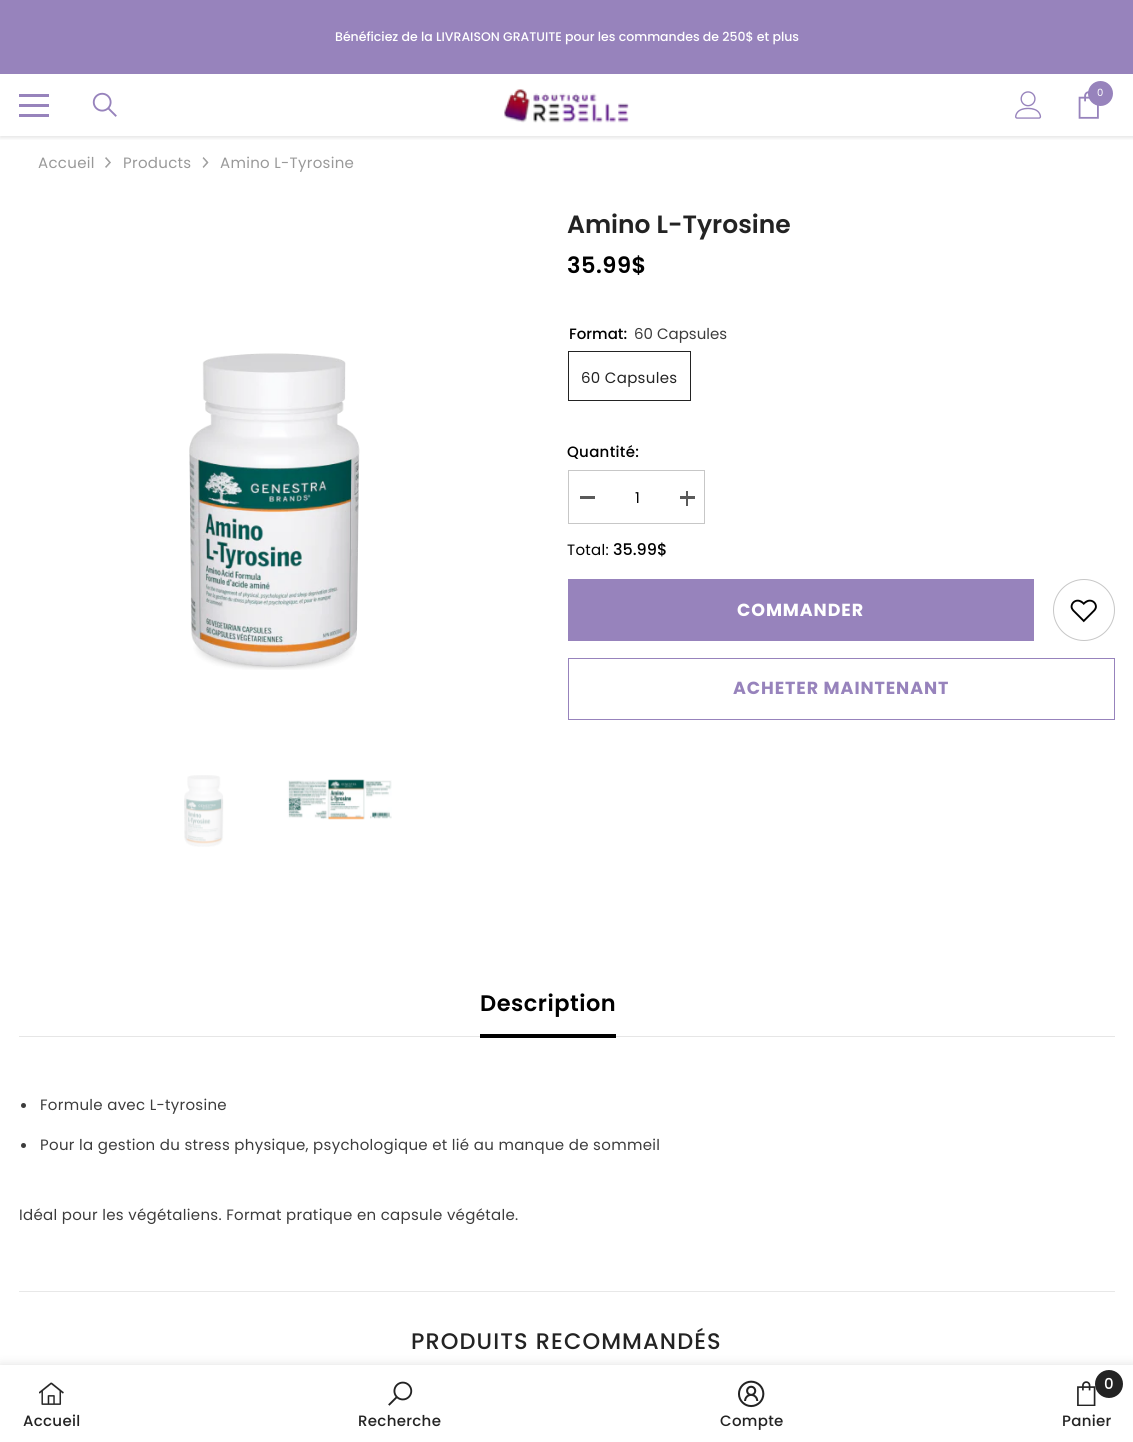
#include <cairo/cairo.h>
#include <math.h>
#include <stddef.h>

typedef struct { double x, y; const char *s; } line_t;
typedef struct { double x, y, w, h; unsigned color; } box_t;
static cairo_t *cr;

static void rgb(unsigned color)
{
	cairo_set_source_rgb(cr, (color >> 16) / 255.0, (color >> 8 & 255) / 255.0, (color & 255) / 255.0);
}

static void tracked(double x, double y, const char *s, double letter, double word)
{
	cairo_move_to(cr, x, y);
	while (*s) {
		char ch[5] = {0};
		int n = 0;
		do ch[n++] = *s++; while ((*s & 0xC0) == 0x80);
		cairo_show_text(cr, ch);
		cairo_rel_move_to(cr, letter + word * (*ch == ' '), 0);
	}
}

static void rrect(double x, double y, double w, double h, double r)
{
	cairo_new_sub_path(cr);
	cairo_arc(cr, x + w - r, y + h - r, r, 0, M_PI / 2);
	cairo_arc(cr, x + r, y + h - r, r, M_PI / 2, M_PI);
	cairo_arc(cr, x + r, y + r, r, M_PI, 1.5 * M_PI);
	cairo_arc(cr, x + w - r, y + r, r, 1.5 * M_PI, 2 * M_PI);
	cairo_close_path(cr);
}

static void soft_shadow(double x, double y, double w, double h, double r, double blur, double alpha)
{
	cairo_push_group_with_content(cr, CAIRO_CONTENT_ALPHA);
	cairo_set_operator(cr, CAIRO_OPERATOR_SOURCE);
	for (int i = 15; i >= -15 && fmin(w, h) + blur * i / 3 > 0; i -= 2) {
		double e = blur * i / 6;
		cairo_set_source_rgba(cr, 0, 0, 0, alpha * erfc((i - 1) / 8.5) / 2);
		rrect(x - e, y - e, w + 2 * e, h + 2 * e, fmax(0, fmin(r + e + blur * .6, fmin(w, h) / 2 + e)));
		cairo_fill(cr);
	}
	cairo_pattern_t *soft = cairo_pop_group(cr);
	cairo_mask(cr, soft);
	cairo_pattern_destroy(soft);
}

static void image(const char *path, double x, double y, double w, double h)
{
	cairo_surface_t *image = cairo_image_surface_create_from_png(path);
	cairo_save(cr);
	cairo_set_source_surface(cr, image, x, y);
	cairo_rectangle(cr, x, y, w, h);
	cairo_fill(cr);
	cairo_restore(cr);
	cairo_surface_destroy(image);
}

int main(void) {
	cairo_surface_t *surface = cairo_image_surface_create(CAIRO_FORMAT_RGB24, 1133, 1442);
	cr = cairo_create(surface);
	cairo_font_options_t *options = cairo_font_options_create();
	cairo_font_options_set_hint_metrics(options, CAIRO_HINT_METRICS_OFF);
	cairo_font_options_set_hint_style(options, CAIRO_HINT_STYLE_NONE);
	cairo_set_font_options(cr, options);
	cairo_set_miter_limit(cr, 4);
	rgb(0xffffff);
	cairo_paint(cr);
	rgb(0x9783bc);
	cairo_rectangle(cr, 0, 0, 1133, 74);
	cairo_fill(cr);
	cairo_save(cr);
	cairo_rectangle(cr, 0, 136, 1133, 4);
	cairo_clip(cr);
	rgb(0x000000);
	soft_shadow(0, 75, 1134, 63, 0, 2, 0.1);
	cairo_restore(cr);
	{
		static const box_t items[] = {
			{19, 104, 30, 3, 0x9783bc},
			{19, 94, 30, 3, 0x9783bc},
			{19, 114, 30, 3, 0x9783bc},
		};
		for (size_t i = 0; i < sizeof items / sizeof *items; i++) {
			rgb(items[i].color);
			cairo_rectangle(cr, items[i].x, items[i].y, items[i].w, items[i].h);
			cairo_fill(cr);
		}
	}
	image("img/1.png", 92, 92, 25, 25);
	image("img/2.png", 504, 89, 125, 34);
	image("img/3.png", 1015, 91, 27, 28);
	image("img/4.png", 1078, 91, 21, 28);
	cairo_arc(cr, 1100.5, 93.5, 12.5, 0, 2 * M_PI);
	cairo_fill(cr);
	image("img/5.png", 105, 157, 6, 11);
	image("img/6.png", 202, 157, 7, 11);
	image("img/7.png", 189, 353, 171, 317);
	image("img/8.png", 184, 775, 40, 72);
	image("img/9.png", 287, 779, 105, 41);
	cairo_rectangle(cr, 568.5, 351.5, 122, 49);
	rgb(0x232323);
	cairo_set_line_width(cr, 1);
	cairo_stroke(cr);
	cairo_rectangle(cr, 568.5, 470.5, 136, 53);
	rgb(0xc7c7c7);
	cairo_stroke(cr);
	{
		static const box_t items[] = {
			{580, 496, 15, 3, 0x5a5a5a},
			{680, 496, 15, 3, 0x5a5a5a},
			{686, 491, 2, 15, 0x5a5a5a},
			{568, 579, 466, 62, 0x9783bc},
		};
		for (size_t i = 0; i < sizeof items / sizeof *items; i++) {
			rgb(items[i].color);
			cairo_rectangle(cr, items[i].x, items[i].y, items[i].w, items[i].h);
			cairo_fill(cr);
		}
	}
	cairo_arc(cr, 1084, 610, 30.5, 0, 2 * M_PI);
	rgb(0xc7c7c7);
	cairo_stroke(cr);
	image("img/10.png", 1070, 599, 27, 24);
	cairo_rectangle(cr, 568.5, 658.5, 546, 61);
	rgb(0x9783bc);
	cairo_stroke(cr);
	rgb(0xe6e6e6);
	cairo_rectangle(cr, 19, 1036, 1096, 1);
	cairo_fill(cr);
	rgb(0x000000);
	cairo_rectangle(cr, 480, 1034, 136, 4);
	cairo_fill(cr);
	rgb(0x3c3c3c);
	cairo_arc(cr, 23.5, 1105.5, 2.5, 0, 2 * M_PI);
	cairo_fill(cr);
	cairo_arc(cr, 23.5, 1145.5, 2.5, 0, 2 * M_PI);
	cairo_fill(cr);
	rgb(0xe8e8e8);
	cairo_rectangle(cr, 19, 1291, 1096, 1);
	cairo_fill(cr);
	rgb(0x000000);
	soft_shadow(0, 1365, 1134, 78, 0, 5.5, 0.12);
	rgb(0xffffff);
	cairo_rectangle(cr, 0, 1365, 1133, 77);
	cairo_fill(cr);
	image("img/11.png", 39, 1382, 25, 23);
	image("img/12.png", 388, 1381, 25, 25);
	image("img/13.png", 738, 1380, 27, 28);
	image("img/14.png", 1077, 1381, 19, 25);
	rgb(0x232323);
	cairo_arc(cr, 1109, 1384, 14, 0, 2 * M_PI);
	cairo_fill(cr);
	cairo_select_font_face(cr, "Poppins Medium", CAIRO_FONT_SLANT_NORMAL, CAIRO_FONT_WEIGHT_NORMAL);
	cairo_set_font_size(cr, 12.5);
	rgb(0xffffff);
	cairo_move_to(cr, 335, 41);
	cairo_show_text(cr, "Bénéficiez de la LIVRAISON GRATUITE pour les commandes de 250$ et plus");
	cairo_select_font_face(cr, "Poppins", CAIRO_FONT_SLANT_NORMAL, CAIRO_FONT_WEIGHT_NORMAL);
	cairo_set_font_size(cr, 10);
	cairo_move_to(cr, 1097, 96);
	cairo_show_text(cr, "0");
	cairo_set_font_size(cr, 15);
	rgb(0x999999);
	{
		static const line_t items[] = {
			{38, 168, "Accueil"},
			{123, 168, "Products"},
			{220, 168, "Amino L-Tyrosine"},
		};
		for (size_t i = 0; i < sizeof items / sizeof *items; i++) {
			tracked(items[i].x, items[i].y, items[i].s, 0.3, 0);
		}
	}
	cairo_select_font_face(cr, "Poppins SemiBold", CAIRO_FONT_SLANT_NORMAL, CAIRO_FONT_WEIGHT_NORMAL);
	cairo_set_font_size(cr, 25);
	rgb(0x232323);
	cairo_move_to(cr, 567, 233);
	cairo_show_text(cr, "Amino L-Tyrosine");
	cairo_set_font_size(cr, 22.5);
	rgb(0x000000);
	tracked(567, 273, "35.99$", 0.5, 0);
	cairo_select_font_face(cr, "Poppins Medium", CAIRO_FONT_SLANT_NORMAL, CAIRO_FONT_WEIGHT_NORMAL);
	cairo_set_font_size(cr, 15);
	cairo_move_to(cr, 569, 339);
	cairo_show_text(cr, "Format:");
	cairo_select_font_face(cr, "Poppins", CAIRO_FONT_SLANT_NORMAL, CAIRO_FONT_WEIGHT_NORMAL);
	rgb(0x3c3c3c);
	cairo_move_to(cr, 634, 339);
	cairo_show_text(cr, "60 Capsules");
	rgb(0x232323);
	tracked(581, 383, "60 Capsules", 0.3, 0);
	cairo_select_font_face(cr, "Poppins Medium", CAIRO_FONT_SLANT_NORMAL, CAIRO_FONT_WEIGHT_NORMAL);
	rgb(0x000000);
	tracked(567, 457, "Quantité:", 0.3, 0);
	cairo_select_font_face(cr, "Poppins", CAIRO_FONT_SLANT_NORMAL, CAIRO_FONT_WEIGHT_NORMAL);
	tracked(635, 503, "1", 0.3, 0);
	tracked(567, 555, "Total:", 0.3, 0);
	cairo_select_font_face(cr, "Poppins Medium", CAIRO_FONT_SLANT_NORMAL, CAIRO_FONT_WEIGHT_NORMAL);
	cairo_set_font_size(cr, 16);
	cairo_move_to(cr, 613, 555);
	cairo_show_text(cr, "35.99$");
	cairo_select_font_face(cr, "Poppins", CAIRO_FONT_SLANT_NORMAL, CAIRO_FONT_WEIGHT_BOLD);
	cairo_set_font_size(cr, 17.5);
	rgb(0xffffff);
	tracked(737, 616, "COMMANDER", 0.9, 0);
	rgb(0x9783bc);
	tracked(733, 694, "ACHETER MAINTENANT", 0.9, 0);
	cairo_select_font_face(cr, "Poppins SemiBold", CAIRO_FONT_SLANT_NORMAL, CAIRO_FONT_WEIGHT_NORMAL);
	cairo_set_font_size(cr, 22.5);
	rgb(0x000000);
	tracked(480, 1011, "Description", 0.5, 0);
	cairo_select_font_face(cr, "Poppins", CAIRO_FONT_SLANT_NORMAL, CAIRO_FONT_WEIGHT_NORMAL);
	cairo_set_font_size(cr, 15);
	rgb(0x3c3c3c);
	{
		static const line_t items[] = {
			{40, 1110, "Formule avec L-tyrosine"},
			{40, 1150, "Pour la gestion du stress physique, psychologique et lié au manque de sommeil"},
			{19, 1220, "Idéal pour les végétaliens. Format pratique en capsule végétale."},
		};
		for (size_t i = 0; i < sizeof items / sizeof *items; i++) {
			tracked(items[i].x, items[i].y, items[i].s, 0.3, 0);
		}
	}
	cairo_select_font_face(cr, "Poppins Medium", CAIRO_FONT_SLANT_NORMAL, CAIRO_FONT_WEIGHT_NORMAL);
	cairo_set_font_size(cr, 22.5);
	rgb(0x232323);
	tracked(411, 1349, "PRODUITS RECOMMANDÉS", 1.1, 0);
	cairo_set_font_size(cr, 15);
	{
		static const line_t items[] = {
			{23, 1426, "Accueil"},
			{358, 1426, "Recherche"},
			{720, 1426, "Compte"},
		};
		for (size_t i = 0; i < sizeof items / sizeof *items; i++) {
			tracked(items[i].x, items[i].y, items[i].s, 0.3, 0);
		}
	}
	rgb(0xffffff);
	cairo_move_to(cr, 1104, 1389);
	cairo_show_text(cr, "0");
	rgb(0x232323);
	tracked(1062, 1426, "Panier", 0.3, 0);
	cairo_surface_write_to_png(surface, "page.png");
	cairo_font_options_destroy(options);
	cairo_destroy(cr);
	cairo_surface_destroy(surface);
	return 0;
}
